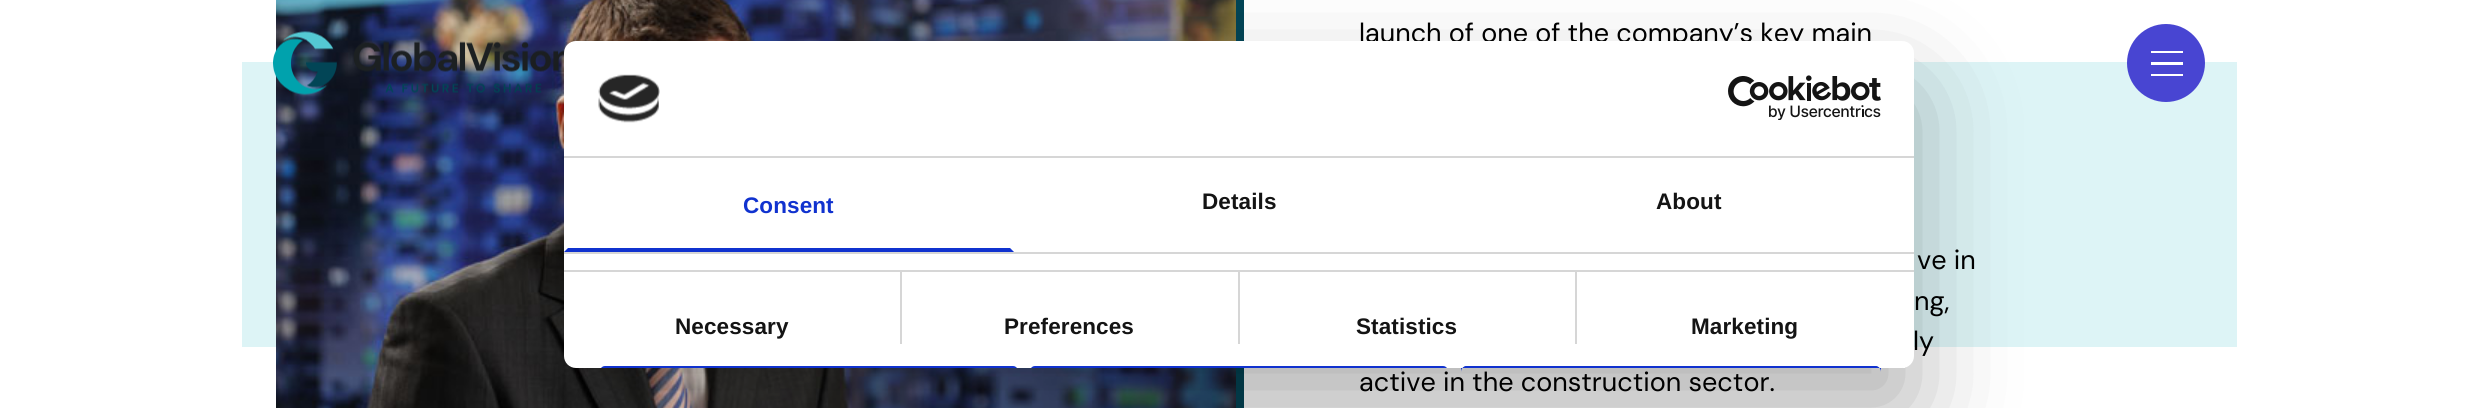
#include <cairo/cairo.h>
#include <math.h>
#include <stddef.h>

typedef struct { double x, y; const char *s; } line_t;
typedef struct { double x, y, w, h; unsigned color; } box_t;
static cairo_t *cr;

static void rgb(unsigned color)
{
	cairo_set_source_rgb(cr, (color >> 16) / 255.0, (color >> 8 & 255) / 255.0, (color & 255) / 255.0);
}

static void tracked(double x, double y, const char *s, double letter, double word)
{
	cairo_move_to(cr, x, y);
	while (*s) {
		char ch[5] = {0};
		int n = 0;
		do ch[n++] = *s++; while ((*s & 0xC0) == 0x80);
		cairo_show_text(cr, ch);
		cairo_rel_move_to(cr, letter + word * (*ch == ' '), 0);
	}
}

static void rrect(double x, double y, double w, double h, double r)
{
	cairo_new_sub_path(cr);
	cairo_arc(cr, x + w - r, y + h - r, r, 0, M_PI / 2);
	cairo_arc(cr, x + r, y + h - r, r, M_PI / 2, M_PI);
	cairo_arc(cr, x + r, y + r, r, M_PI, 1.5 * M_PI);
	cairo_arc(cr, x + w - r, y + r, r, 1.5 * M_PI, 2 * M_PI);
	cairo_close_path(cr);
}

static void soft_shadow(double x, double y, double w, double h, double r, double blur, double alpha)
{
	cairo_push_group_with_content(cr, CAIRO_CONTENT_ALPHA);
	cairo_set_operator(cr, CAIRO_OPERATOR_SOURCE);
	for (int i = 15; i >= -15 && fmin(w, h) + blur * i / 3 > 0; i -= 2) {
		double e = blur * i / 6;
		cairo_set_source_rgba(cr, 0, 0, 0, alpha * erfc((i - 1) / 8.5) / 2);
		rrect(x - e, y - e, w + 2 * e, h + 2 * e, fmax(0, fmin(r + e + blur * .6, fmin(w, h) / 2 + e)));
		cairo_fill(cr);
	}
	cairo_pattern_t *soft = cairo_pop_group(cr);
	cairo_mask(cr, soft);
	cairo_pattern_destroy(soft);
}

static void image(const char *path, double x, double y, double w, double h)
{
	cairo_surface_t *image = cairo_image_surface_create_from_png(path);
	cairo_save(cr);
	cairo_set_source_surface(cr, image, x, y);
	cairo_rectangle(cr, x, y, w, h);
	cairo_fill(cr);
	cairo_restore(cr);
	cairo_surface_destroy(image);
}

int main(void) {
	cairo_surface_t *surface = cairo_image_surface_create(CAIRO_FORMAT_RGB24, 2478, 408);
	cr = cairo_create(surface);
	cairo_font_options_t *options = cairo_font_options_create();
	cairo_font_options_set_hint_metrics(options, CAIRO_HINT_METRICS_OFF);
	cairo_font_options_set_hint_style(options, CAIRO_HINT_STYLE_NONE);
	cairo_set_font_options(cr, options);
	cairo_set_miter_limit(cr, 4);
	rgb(0xffffff);
	cairo_paint(cr);
	rgb(0xddf4f6);
	cairo_rectangle(cr, 242, 62, 1995, 285);
	cairo_fill(cr);
	rgb(0x024556);
	cairo_rectangle(cr, 1236, 0, 8, 408);
	cairo_fill(cr);
	image("img/1.png", 276, 0, 960, 408);
	image("img/2.png", 273, 31, 292, 64);
	rgb(0x4845d2);
	cairo_arc(cr, 2166, 63, 39, 0, 2 * M_PI);
	cairo_fill(cr);
	{
		static const box_t items[] = {
			{2151, 51, 32, 2, 0xffffff},
			{2151, 62, 32, 3, 0xffffff},
			{2151, 74, 32, 2, 0xffffff},
		};
		for (size_t i = 0; i < sizeof items / sizeof *items; i++) {
			rgb(items[i].color);
			cairo_rectangle(cr, items[i].x, items[i].y, items[i].w, items[i].h);
			cairo_fill(cr);
		}
	}
	rgb(0x000000);
	soft_shadow(564, 89, 1350, 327, 12, 51, 0.3);
	cairo_select_font_face(cr, "DM Sans", CAIRO_FONT_SLANT_NORMAL, CAIRO_FONT_WEIGHT_NORMAL);
	cairo_set_font_size(cr, 27);
	rgb(0x000000);
	{
		static const line_t items[] = {
			{1359, 42, "launch of one of the company’s key main"},
			{1917, 269, "ve in"},
			{1914, 310, "ng,"},
			{1913, 350, "ly"},
			{1359, 391, "active in the construction sector."},
		};
		for (size_t i = 0; i < sizeof items / sizeof *items; i++) {
			cairo_move_to(cr, items[i].x, items[i].y);
			cairo_show_text(cr, items[i].s);
		}
	}
	rgb(0xffffff);
	rrect(564, 41, 1350, 327, 12);
	cairo_fill(cr);
	rgb(0xd6d6d6);
	cairo_rectangle(cr, 564, 156, 1350, 2);
	cairo_fill(cr);
	image("img/3.png", 598, 74, 62, 49);
	image("img/4.png", 1728, 75, 153, 45);
	cairo_rectangle(cr, 564, 252, 1350, 2);
	cairo_fill(cr);
	rgb(0x1032cf);
	cairo_new_path(cr);
	cairo_move_to(cr, 1014, 252);
	cairo_line_to(cr, 564, 252);
	cairo_line_to(cr, 568, 248);
	cairo_line_to(cr, 1010, 248);
	cairo_close_path(cr);
	cairo_fill(cr);
	cairo_select_font_face(cr, "Liberation Sans", CAIRO_FONT_SLANT_NORMAL, CAIRO_FONT_WEIGHT_BOLD);
	cairo_set_font_size(cr, 22.5);
	tracked(743, 213, "Consent", 0.1, 0);
	rgb(0x141414);
	tracked(1202, 209, "Details", 0.1, 0);
	tracked(1656, 209, "About", 0.1, 0);
	rgb(0xd6d6d6);
	cairo_rectangle(cr, 564, 270, 1350, 2);
	cairo_fill(cr);
	cairo_rectangle(cr, 900, 272, 2, 72);
	cairo_fill(cr);
	rgb(0x141414);
	tracked(675, 334, "Necessary", 0.1, 0);
	rgb(0xd6d6d6);
	cairo_rectangle(cr, 1238, 272, 2, 72);
	cairo_fill(cr);
	rgb(0x141414);
	tracked(1004, 334, "Preferences", 0.1, 0);
	rgb(0xd6d6d6);
	cairo_rectangle(cr, 1575, 272, 2, 72);
	cairo_fill(cr);
	rgb(0x141414);
	tracked(1356, 334, "Statistics", 0.1, 0);
	tracked(1691, 334, "Marketing", 0.1, 0);
	rgb(0x1032cf);
	cairo_new_path(cr);
	cairo_move_to(cr, 605, 366);
	cairo_line_to(cr, 1013, 366);
	cairo_curve_to(cr, 1015, 366, 1016, 367, 1017, 368);
	cairo_line_to(cr, 601, 368);
	cairo_curve_to(cr, 602, 367, 603, 366, 605, 366);
	cairo_close_path(cr);
	cairo_fill(cr);
	cairo_new_path(cr);
	cairo_move_to(cr, 1035, 366);
	cairo_line_to(cr, 1443, 366);
	cairo_curve_to(cr, 1445, 366, 1446, 367, 1447, 368);
	cairo_line_to(cr, 1031, 368);
	cairo_curve_to(cr, 1032, 367, 1033, 366, 1035, 366);
	cairo_close_path(cr);
	cairo_fill(cr);
	cairo_new_path(cr);
	cairo_move_to(cr, 1467, 366);
	cairo_line_to(cr, 1875, 366);
	cairo_curve_to(cr, 1878.5, 366, 1881, 368.5, 1881, 372);
	cairo_line_to(cr, 1881, 368);
	cairo_line_to(cr, 1461, 368);
	cairo_line_to(cr, 1461, 372);
	cairo_curve_to(cr, 1461, 368.5, 1463.5, 366, 1467, 366);
	cairo_close_path(cr);
	cairo_fill(cr);
	cairo_new_path(cr);
	cairo_move_to(cr, 1467, 366);
	cairo_line_to(cr, 1875, 366);
	cairo_curve_to(cr, 1877, 366, 1878, 367, 1879, 368);
	cairo_line_to(cr, 1463, 368);
	cairo_curve_to(cr, 1464, 367, 1465, 366, 1467, 366);
	cairo_close_path(cr);
	cairo_fill(cr);
	rgb(0xffffff);
	cairo_rectangle(cr, 1903, 367, 2, 1);
	cairo_fill(cr);
	cairo_surface_write_to_png(surface, "page.png");
	cairo_font_options_destroy(options);
	cairo_destroy(cr);
	cairo_surface_destroy(surface);
	return 0;
}
